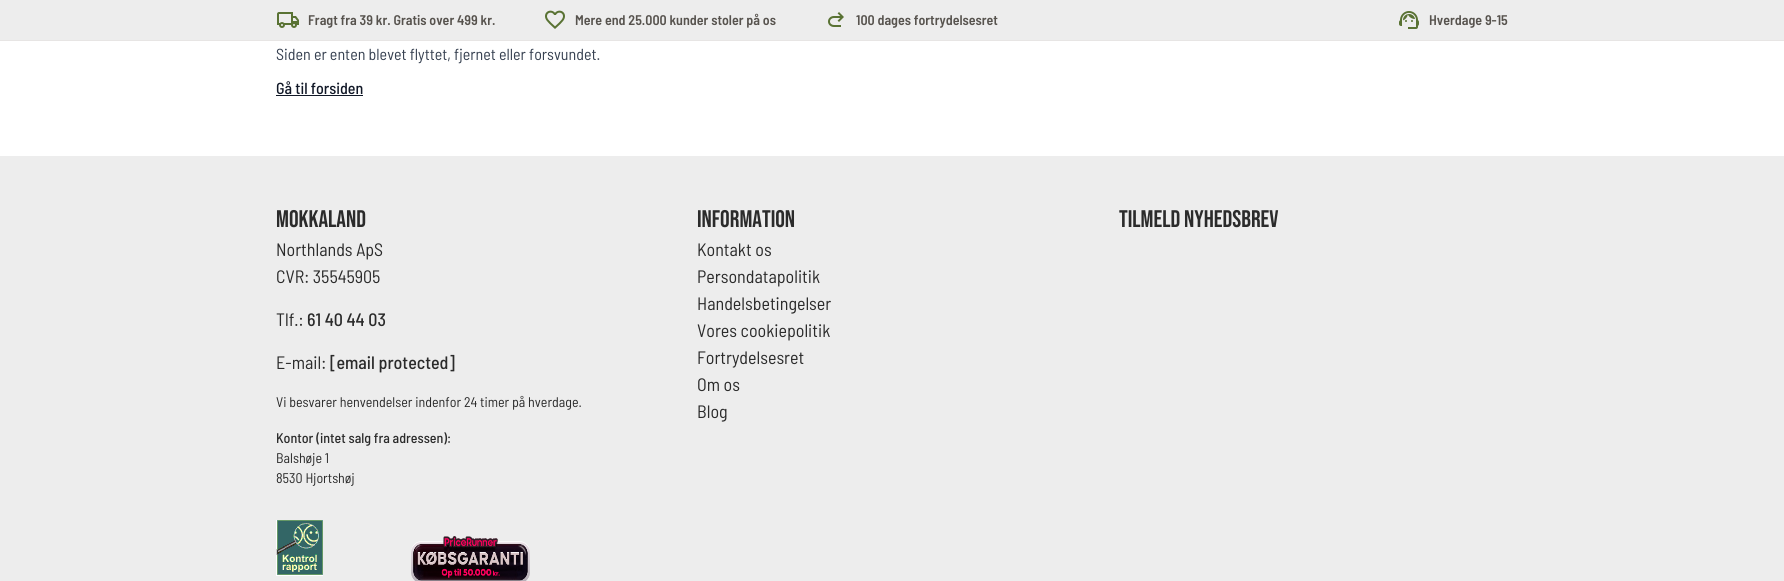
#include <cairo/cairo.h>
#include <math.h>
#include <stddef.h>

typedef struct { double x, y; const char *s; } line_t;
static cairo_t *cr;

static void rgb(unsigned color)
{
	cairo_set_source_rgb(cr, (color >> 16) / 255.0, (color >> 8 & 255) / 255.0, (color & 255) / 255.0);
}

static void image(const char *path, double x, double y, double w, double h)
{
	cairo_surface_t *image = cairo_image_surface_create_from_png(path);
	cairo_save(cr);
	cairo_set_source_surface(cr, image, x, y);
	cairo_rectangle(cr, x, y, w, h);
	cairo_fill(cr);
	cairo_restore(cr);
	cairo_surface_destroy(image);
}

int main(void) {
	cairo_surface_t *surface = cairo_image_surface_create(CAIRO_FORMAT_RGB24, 1784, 581);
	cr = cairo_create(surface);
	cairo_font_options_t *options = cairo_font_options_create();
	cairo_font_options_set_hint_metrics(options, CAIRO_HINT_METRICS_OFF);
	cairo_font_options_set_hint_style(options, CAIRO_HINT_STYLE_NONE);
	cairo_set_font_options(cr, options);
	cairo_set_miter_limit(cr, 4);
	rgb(0xffffff);
	cairo_paint(cr);
	rgb(0xededed);
	cairo_rectangle(cr, 0, 0, 1784, 40);
	cairo_fill(cr);
	rgb(0xe7e5e4);
	cairo_rectangle(cr, 0, 40, 1784, 1);
	cairo_fill(cr);
	image("img/1.png", 277, 12, 22, 16);
	image("img/2.png", 545, 10, 20, 19);
	image("img/3.png", 828, 12, 16, 15);
	image("img/4.png", 1399, 11, 20, 18);
	rgb(0x111827);
	cairo_rectangle(cr, 276, 95, 87, 1);
	cairo_fill(cr);
	rgb(0xededed);
	cairo_rectangle(cr, 0, 156, 1784, 425);
	cairo_fill(cr);
	image("img/5.png", 276, 520, 47, 56);
	image("img/6.png", 411, 536, 119, 45);
	cairo_select_font_face(cr, "Barlow Semi Condensed SemiBold", CAIRO_FONT_SLANT_NORMAL, CAIRO_FONT_WEIGHT_NORMAL);
	cairo_set_font_size(cr, 14);
	rgb(0x57534e);
	{
		static const line_t items[] = {
			{308, 25, "Fragt fra 39 kr. Gratis over 499 kr."},
			{575, 25, "Mere end 25.000 kunder stoler på os"},
			{856, 25, "100 dages fortrydelsesret"},
			{1429, 25, "Hverdage 9-15"},
		};
		for (size_t i = 0; i < sizeof items / sizeof *items; i++) {
			cairo_move_to(cr, items[i].x, items[i].y);
			cairo_show_text(cr, items[i].s);
		}
	}
	cairo_select_font_face(cr, "Barlow Semi Condensed", CAIRO_FONT_SLANT_NORMAL, CAIRO_FONT_WEIGHT_NORMAL);
	cairo_set_font_size(cr, 16);
	rgb(0x374151);
	cairo_move_to(cr, 276, 60);
	cairo_show_text(cr, "Siden er enten blevet flyttet, fjernet eller forsvundet.");
	cairo_select_font_face(cr, "Barlow Semi Condensed Medium", CAIRO_FONT_SLANT_NORMAL, CAIRO_FONT_WEIGHT_NORMAL);
	rgb(0x111827);
	cairo_move_to(cr, 276, 94);
	cairo_show_text(cr, "Gå til forsiden");
	cairo_select_font_face(cr, "Bebas Neue", CAIRO_FONT_SLANT_NORMAL, CAIRO_FONT_WEIGHT_NORMAL);
	cairo_set_font_size(cr, 24);
	rgb(0x2b2b2b);
	cairo_move_to(cr, 276, 227);
	cairo_show_text(cr, "Mokkaland");
	cairo_select_font_face(cr, "Barlow Semi Condensed", CAIRO_FONT_SLANT_NORMAL, CAIRO_FONT_WEIGHT_NORMAL);
	cairo_set_font_size(cr, 18);
	{
		static const line_t items[] = {
			{276, 256, "Northlands ApS"},
			{276, 283, "CVR: 35545905"},
			{276, 326, "Tlf.:"},
		};
		for (size_t i = 0; i < sizeof items / sizeof *items; i++) {
			cairo_move_to(cr, items[i].x, items[i].y);
			cairo_show_text(cr, items[i].s);
		}
	}
	cairo_select_font_face(cr, "Barlow Semi Condensed Medium", CAIRO_FONT_SLANT_NORMAL, CAIRO_FONT_WEIGHT_NORMAL);
	cairo_move_to(cr, 307, 326);
	cairo_show_text(cr, "61 40 44 03");
	cairo_select_font_face(cr, "Barlow Semi Condensed", CAIRO_FONT_SLANT_NORMAL, CAIRO_FONT_WEIGHT_NORMAL);
	cairo_move_to(cr, 276, 369);
	cairo_show_text(cr, "E-mail:");
	cairo_select_font_face(cr, "Barlow Semi Condensed Medium", CAIRO_FONT_SLANT_NORMAL, CAIRO_FONT_WEIGHT_NORMAL);
	cairo_move_to(cr, 330, 369);
	cairo_show_text(cr, "[email protected]");
	cairo_select_font_face(cr, "Barlow Semi Condensed", CAIRO_FONT_SLANT_NORMAL, CAIRO_FONT_WEIGHT_NORMAL);
	cairo_set_font_size(cr, 14);
	cairo_move_to(cr, 276, 407);
	cairo_show_text(cr, "Vi besvarer henvendelser indenfor 24 timer på hverdage.");
	cairo_select_font_face(cr, "Barlow Semi Condensed Medium", CAIRO_FONT_SLANT_NORMAL, CAIRO_FONT_WEIGHT_NORMAL);
	cairo_move_to(cr, 276, 443);
	cairo_show_text(cr, "Kontor (intet salg fra adressen):");
	cairo_select_font_face(cr, "Barlow Semi Condensed", CAIRO_FONT_SLANT_NORMAL, CAIRO_FONT_WEIGHT_NORMAL);
	cairo_move_to(cr, 276, 463);
	cairo_show_text(cr, "Balshøje 1");
	cairo_move_to(cr, 276, 483);
	cairo_show_text(cr, "8530 Hjortshøj");
	cairo_select_font_face(cr, "Bebas Neue", CAIRO_FONT_SLANT_NORMAL, CAIRO_FONT_WEIGHT_NORMAL);
	cairo_set_font_size(cr, 24);
	cairo_move_to(cr, 697, 227);
	cairo_show_text(cr, "Information");
	cairo_select_font_face(cr, "Barlow Semi Condensed", CAIRO_FONT_SLANT_NORMAL, CAIRO_FONT_WEIGHT_NORMAL);
	cairo_set_font_size(cr, 18);
	{
		static const line_t items[] = {
			{697, 256, "Kontakt os"},
			{697, 283, "Persondatapolitik"},
			{697, 310, "Handelsbetingelser"},
			{697, 337, "Vores cookiepolitik"},
			{697, 364, "Fortrydelsesret"},
			{697, 391, "Om os"},
			{697, 418, "Blog"},
		};
		for (size_t i = 0; i < sizeof items / sizeof *items; i++) {
			cairo_move_to(cr, items[i].x, items[i].y);
			cairo_show_text(cr, items[i].s);
		}
	}
	cairo_select_font_face(cr, "Bebas Neue", CAIRO_FONT_SLANT_NORMAL, CAIRO_FONT_WEIGHT_NORMAL);
	cairo_set_font_size(cr, 24);
	cairo_move_to(cr, 1119, 227);
	cairo_show_text(cr, "Tilmeld nyhedsbrev");
	cairo_surface_write_to_png(surface, "page.png");
	cairo_font_options_destroy(options);
	cairo_destroy(cr);
	cairo_surface_destroy(surface);
	return 0;
}
